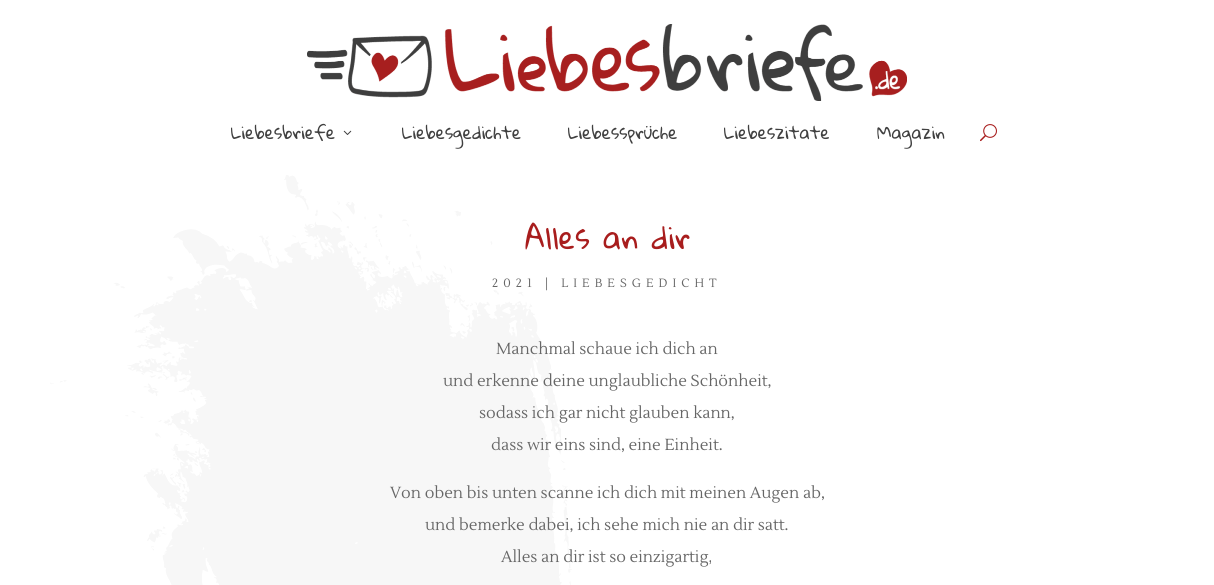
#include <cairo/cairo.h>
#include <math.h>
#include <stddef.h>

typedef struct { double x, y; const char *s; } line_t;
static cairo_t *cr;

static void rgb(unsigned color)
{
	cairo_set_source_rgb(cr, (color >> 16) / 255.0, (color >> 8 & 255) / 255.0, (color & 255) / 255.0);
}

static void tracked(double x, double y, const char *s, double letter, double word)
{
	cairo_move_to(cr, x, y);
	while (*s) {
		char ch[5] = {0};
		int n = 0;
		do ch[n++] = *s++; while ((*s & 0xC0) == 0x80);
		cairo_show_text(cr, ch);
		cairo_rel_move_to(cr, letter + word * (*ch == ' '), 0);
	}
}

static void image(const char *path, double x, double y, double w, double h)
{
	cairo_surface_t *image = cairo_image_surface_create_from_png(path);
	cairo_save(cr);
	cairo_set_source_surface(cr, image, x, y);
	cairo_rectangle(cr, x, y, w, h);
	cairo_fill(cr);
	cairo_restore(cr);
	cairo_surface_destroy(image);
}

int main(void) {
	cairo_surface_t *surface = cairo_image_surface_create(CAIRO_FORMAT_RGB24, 1214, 585);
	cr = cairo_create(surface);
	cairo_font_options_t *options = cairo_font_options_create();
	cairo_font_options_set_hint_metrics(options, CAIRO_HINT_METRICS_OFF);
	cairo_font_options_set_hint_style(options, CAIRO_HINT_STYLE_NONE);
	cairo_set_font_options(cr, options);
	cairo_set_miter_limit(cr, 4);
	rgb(0xffffff);
	cairo_paint(cr);
	image("img/1.png", 307, 24, 600, 77);
	image("img/2.png", 343, 130, 9, 5);
	image("img/3.png", 980, 124, 17, 18);
	image("img/4.png", 50, 175, 522, 410);
	cairo_select_font_face(cr, "Gloria Hallelujah", CAIRO_FONT_SLANT_NORMAL, CAIRO_FONT_WEIGHT_NORMAL);
	cairo_set_font_size(cr, 17);
	rgb(0x404040);
	{
		static const line_t items[] = {
			{231, 139, "Liebesbriefe"},
			{402, 139, "Liebesgedichte"},
			{568, 139, "Liebessprüche"},
			{724, 139, "Liebeszitate"},
			{877, 139, "Magazin"},
		};
		for (size_t i = 0; i < sizeof items / sizeof *items; i++) {
			cairo_move_to(cr, items[i].x, items[i].y);
			cairo_show_text(cr, items[i].s);
		}
	}
	cairo_set_font_size(cr, 30);
	rgb(0xa81d1d);
	cairo_move_to(cr, 525, 249);
	cairo_show_text(cr, "Alles an dir");
	cairo_select_font_face(cr, "Lustria", CAIRO_FONT_SLANT_NORMAL, CAIRO_FONT_WEIGHT_NORMAL);
	cairo_set_font_size(cr, 12);
	rgb(0x666666);
	tracked(492, 287, "2021 | LIEBESGEDICHT", 5, 0);
	cairo_set_font_size(cr, 16);
	{
		static const line_t items[] = {
			{496, 354, "Manchmal schaue ich dich an"},
			{443, 386, "und erkenne deine unglaubliche Schönheit,"},
			{479, 418, "sodass ich gar nicht glauben kann,"},
			{491, 450, "dass wir eins sind, eine Einheit."},
			{390, 498, "Von oben bis unten scanne ich dich mit meinen Augen ab,"},
			{425, 530, "und bemerke dabei, ich sehe mich nie an dir satt."},
			{501, 562, "Alles an dir ist so einzigartig,"},
		};
		for (size_t i = 0; i < sizeof items / sizeof *items; i++) {
			cairo_move_to(cr, items[i].x, items[i].y);
			cairo_show_text(cr, items[i].s);
		}
	}
	cairo_surface_write_to_png(surface, "page.png");
	cairo_font_options_destroy(options);
	cairo_destroy(cr);
	cairo_surface_destroy(surface);
	return 0;
}
